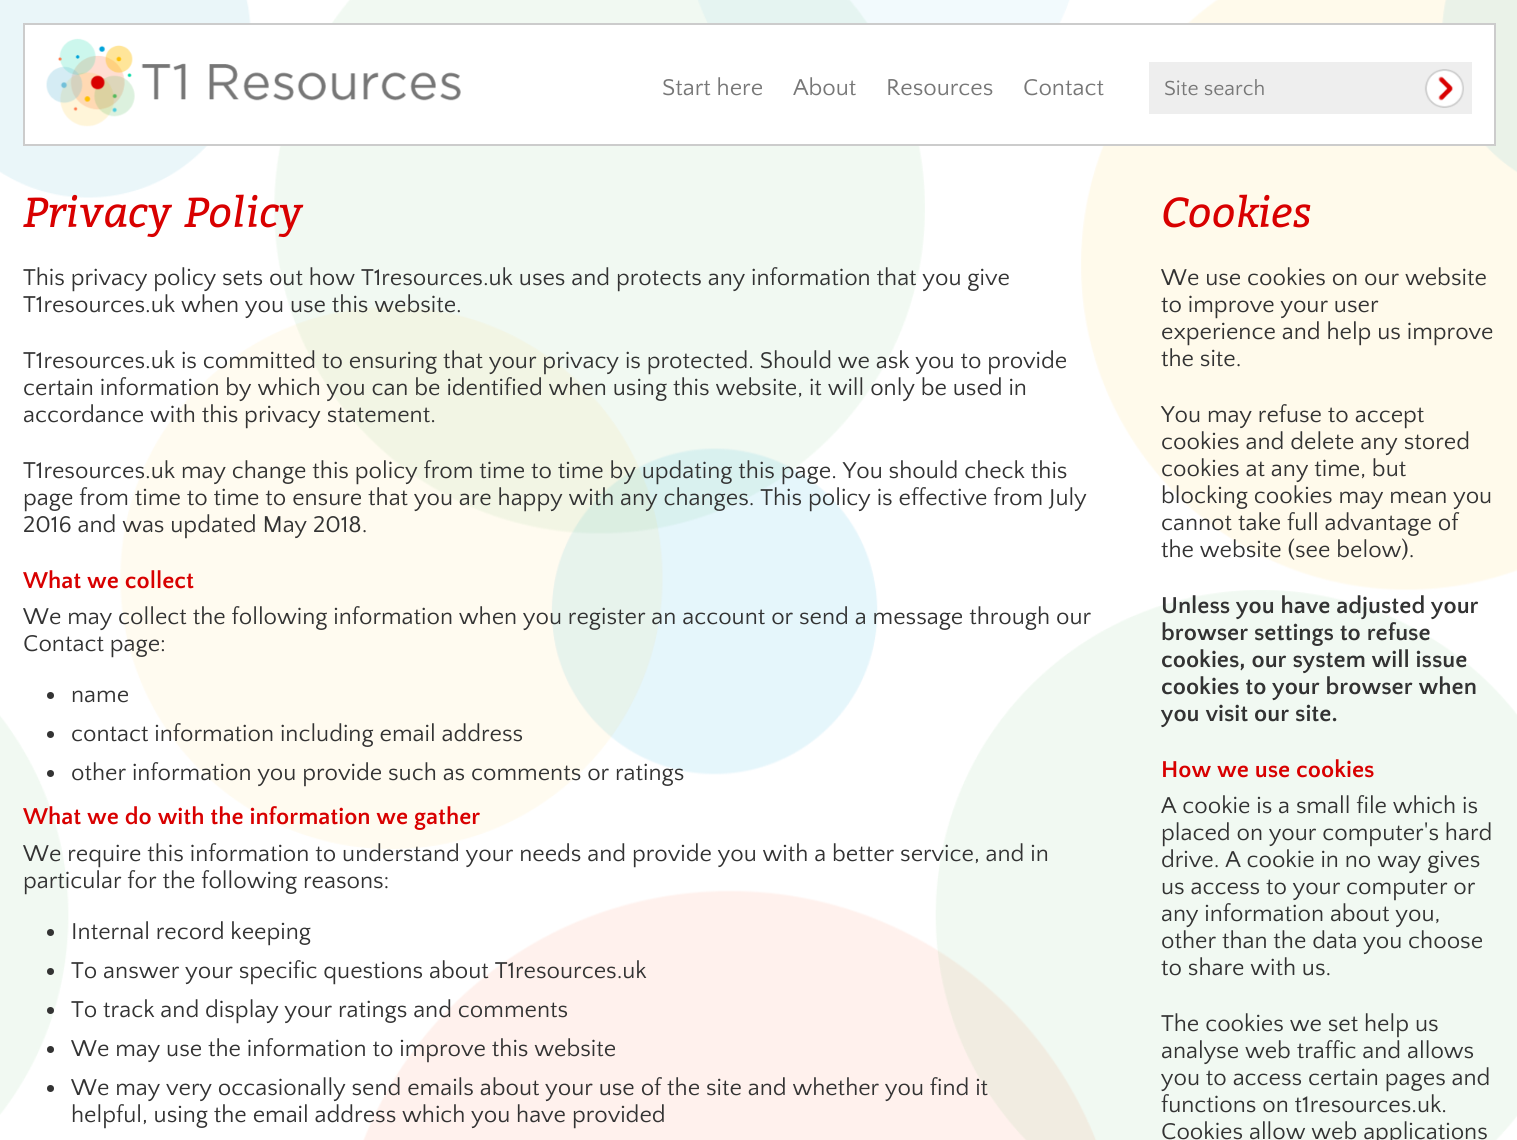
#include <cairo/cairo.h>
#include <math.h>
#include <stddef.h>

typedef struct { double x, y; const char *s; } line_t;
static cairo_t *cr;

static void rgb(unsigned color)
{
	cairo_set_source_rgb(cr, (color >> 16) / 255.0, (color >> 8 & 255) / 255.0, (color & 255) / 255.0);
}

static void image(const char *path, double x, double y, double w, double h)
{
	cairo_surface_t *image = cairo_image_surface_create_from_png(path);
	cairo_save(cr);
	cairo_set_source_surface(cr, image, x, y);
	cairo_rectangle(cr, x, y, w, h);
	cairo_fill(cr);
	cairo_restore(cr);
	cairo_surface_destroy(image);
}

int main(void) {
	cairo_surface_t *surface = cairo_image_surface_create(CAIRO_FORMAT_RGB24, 1517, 1140);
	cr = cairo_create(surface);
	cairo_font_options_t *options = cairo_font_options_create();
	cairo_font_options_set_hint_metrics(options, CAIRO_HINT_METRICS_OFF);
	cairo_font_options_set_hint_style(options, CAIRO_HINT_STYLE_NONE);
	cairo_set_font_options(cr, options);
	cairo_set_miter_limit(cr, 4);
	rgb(0xffffff);
	cairo_paint(cr);
	image("img/2.png", 274, 0, 1243, 1140);
	image("img/1.png", 0, 0, 1517, 1140);
	rgb(0xffffff);
	cairo_rectangle(cr, 24, 24, 1471, 121);
	cairo_fill_preserve(cr);
	rgb(0xcccccc);
	cairo_stroke(cr);
	image("img/3.png", 46, 38, 415, 89);
	rgb(0xeeeeee);
	cairo_rectangle(cr, 1149, 62, 323, 52);
	cairo_fill(cr);
	image("img/4.png", 1424, 69, 40, 39);
	rgb(0x333333);
	cairo_arc(cr, 50.5, 695.5, 3.5, 0, 2 * M_PI);
	cairo_fill(cr);
	cairo_arc(cr, 50.5, 734.5, 3.5, 0, 2 * M_PI);
	cairo_fill(cr);
	cairo_arc(cr, 50.5, 773.5, 3.5, 0, 2 * M_PI);
	cairo_fill(cr);
	cairo_arc(cr, 50.5, 932.5, 3.5, 0, 2 * M_PI);
	cairo_fill(cr);
	cairo_arc(cr, 50.5, 971.5, 3.5, 0, 2 * M_PI);
	cairo_fill(cr);
	cairo_arc(cr, 50.5, 1010.5, 3.5, 0, 2 * M_PI);
	cairo_fill(cr);
	cairo_arc(cr, 50.5, 1049.5, 3.5, 0, 2 * M_PI);
	cairo_fill(cr);
	cairo_arc(cr, 50.5, 1088.5, 3.5, 0, 2 * M_PI);
	cairo_fill(cr);
	cairo_select_font_face(cr, "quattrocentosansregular", CAIRO_FONT_SLANT_NORMAL, CAIRO_FONT_WEIGHT_NORMAL);
	cairo_set_font_size(cr, 24);
	rgb(0x777777);
	{
		static const line_t items[] = {
			{662, 95, "Start here"},
			{793, 95, "About"},
			{886, 95, "Resources"},
			{1023, 95, "Contact"},
		};
		for (size_t i = 0; i < sizeof items / sizeof *items; i++) {
			cairo_move_to(cr, items[i].x, items[i].y);
			cairo_show_text(cr, items[i].s);
		}
	}
	cairo_set_font_size(cr, 21.5);
	cairo_move_to(cr, 1164, 95);
	cairo_show_text(cr, "Site search");
	cairo_select_font_face(cr, "Bitter", CAIRO_FONT_SLANT_ITALIC, CAIRO_FONT_WEIGHT_NORMAL);
	cairo_set_font_size(cr, 42);
	rgb(0xd80000);
	cairo_move_to(cr, 23, 227);
	cairo_show_text(cr, "Privacy Policy");
	cairo_select_font_face(cr, "quattrocentosansregular", CAIRO_FONT_SLANT_NORMAL, CAIRO_FONT_WEIGHT_NORMAL);
	cairo_set_font_size(cr, 24);
	rgb(0x333333);
	{
		static const line_t items[] = {
			{23, 285, "This privacy policy sets out how T1resources.uk uses and protects any information that you give"},
			{23, 312, "T1resources.uk when you use this website."},
			{23, 368, "T1resources.uk is committed to ensuring that your privacy is protected. Should we ask you to provide"},
			{23, 395, "certain information by which you can be identified when using this website, it will only be used in"},
			{23, 422, "accordance with this privacy statement."},
			{23, 478, "T1resources.uk may change this policy from time to time by updating this page. You should check this"},
			{23, 505, "page from time to time to ensure that you are happy with any changes. This policy is effective from July"},
			{23, 532, "2016 and was updated May 2018."},
		};
		for (size_t i = 0; i < sizeof items / sizeof *items; i++) {
			cairo_move_to(cr, items[i].x, items[i].y);
			cairo_show_text(cr, items[i].s);
		}
	}
	cairo_select_font_face(cr, "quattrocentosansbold", CAIRO_FONT_SLANT_NORMAL, CAIRO_FONT_WEIGHT_BOLD);
	rgb(0xd80000);
	cairo_move_to(cr, 23, 588);
	cairo_show_text(cr, "What we collect");
	cairo_select_font_face(cr, "quattrocentosansregular", CAIRO_FONT_SLANT_NORMAL, CAIRO_FONT_WEIGHT_NORMAL);
	rgb(0x333333);
	{
		static const line_t items[] = {
			{23, 624, "We may collect the following information when you register an account or send a message through our"},
			{23, 651, "Contact page:"},
			{71, 702, "name"},
			{71, 741, "contact information including email address"},
			{71, 780, "other information you provide such as comments or ratings"},
		};
		for (size_t i = 0; i < sizeof items / sizeof *items; i++) {
			cairo_move_to(cr, items[i].x, items[i].y);
			cairo_show_text(cr, items[i].s);
		}
	}
	cairo_select_font_face(cr, "quattrocentosansbold", CAIRO_FONT_SLANT_NORMAL, CAIRO_FONT_WEIGHT_BOLD);
	rgb(0xd80000);
	cairo_move_to(cr, 23, 824);
	cairo_show_text(cr, "What we do with the information we gather");
	cairo_select_font_face(cr, "quattrocentosansregular", CAIRO_FONT_SLANT_NORMAL, CAIRO_FONT_WEIGHT_NORMAL);
	rgb(0x333333);
	{
		static const line_t items[] = {
			{23, 861, "We require this information to understand your needs and provide you with a better service, and in"},
			{23, 888, "particular for the following reasons:"},
			{71, 939, "Internal record keeping"},
			{71, 978, "To answer your specific questions about T1resources.uk"},
			{71, 1017, "To track and display your ratings and comments"},
			{71, 1056, "We may use the information to improve this website"},
			{71, 1095, "We may very occasionally send emails about your use of the site and whether you find it"},
			{71, 1122, "helpful, using the email address which you have provided"},
		};
		for (size_t i = 0; i < sizeof items / sizeof *items; i++) {
			cairo_move_to(cr, items[i].x, items[i].y);
			cairo_show_text(cr, items[i].s);
		}
	}
	cairo_select_font_face(cr, "Bitter", CAIRO_FONT_SLANT_ITALIC, CAIRO_FONT_WEIGHT_NORMAL);
	cairo_set_font_size(cr, 42);
	rgb(0xd80000);
	cairo_move_to(cr, 1161, 227);
	cairo_show_text(cr, "Cookies");
	cairo_select_font_face(cr, "quattrocentosansregular", CAIRO_FONT_SLANT_NORMAL, CAIRO_FONT_WEIGHT_NORMAL);
	cairo_set_font_size(cr, 24);
	rgb(0x333333);
	{
		static const line_t items[] = {
			{1161, 285, "We use cookies on our website"},
			{1161, 312, "to improve your user"},
			{1161, 339, "experience and help us improve"},
			{1161, 366, "the site."},
			{1161, 422, "You may refuse to accept"},
			{1161, 449, "cookies and delete any stored"},
			{1161, 476, "cookies at any time, but"},
			{1161, 503, "blocking cookies may mean you"},
			{1161, 530, "cannot take full advantage of"},
			{1161, 557, "the website (see below)."},
		};
		for (size_t i = 0; i < sizeof items / sizeof *items; i++) {
			cairo_move_to(cr, items[i].x, items[i].y);
			cairo_show_text(cr, items[i].s);
		}
	}
	cairo_select_font_face(cr, "quattrocentosansbold", CAIRO_FONT_SLANT_NORMAL, CAIRO_FONT_WEIGHT_BOLD);
	{
		static const line_t items[] = {
			{1161, 613, "Unless you have adjusted your"},
			{1161, 640, "browser settings to refuse"},
			{1161, 667, "cookies, our system will issue"},
			{1161, 694, "cookies to your browser when"},
			{1161, 721, "you visit our site."},
		};
		for (size_t i = 0; i < sizeof items / sizeof *items; i++) {
			cairo_move_to(cr, items[i].x, items[i].y);
			cairo_show_text(cr, items[i].s);
		}
	}
	rgb(0xd80000);
	cairo_move_to(cr, 1161, 777);
	cairo_show_text(cr, "How we use cookies");
	cairo_select_font_face(cr, "quattrocentosansregular", CAIRO_FONT_SLANT_NORMAL, CAIRO_FONT_WEIGHT_NORMAL);
	rgb(0x333333);
	{
		static const line_t items[] = {
			{1161, 813, "A cookie is a small file which is"},
			{1161, 840, "placed on your computer's hard"},
			{1161, 867, "drive. A cookie in no way gives"},
			{1161, 894, "us access to your computer or"},
			{1161, 921, "any information about you,"},
			{1161, 948, "other than the data you choose"},
			{1161, 975, "to share with us."},
			{1161, 1031, "The cookies we set help us"},
			{1161, 1058, "analyse web traffic and allows"},
			{1161, 1085, "you to access certain pages and"},
			{1161, 1112, "functions on t1resources.uk."},
			{1161, 1139, "Cookies allow web applications"},
		};
		for (size_t i = 0; i < sizeof items / sizeof *items; i++) {
			cairo_move_to(cr, items[i].x, items[i].y);
			cairo_show_text(cr, items[i].s);
		}
	}
	cairo_surface_write_to_png(surface, "page.png");
	cairo_font_options_destroy(options);
	cairo_destroy(cr);
	cairo_surface_destroy(surface);
	return 0;
}
